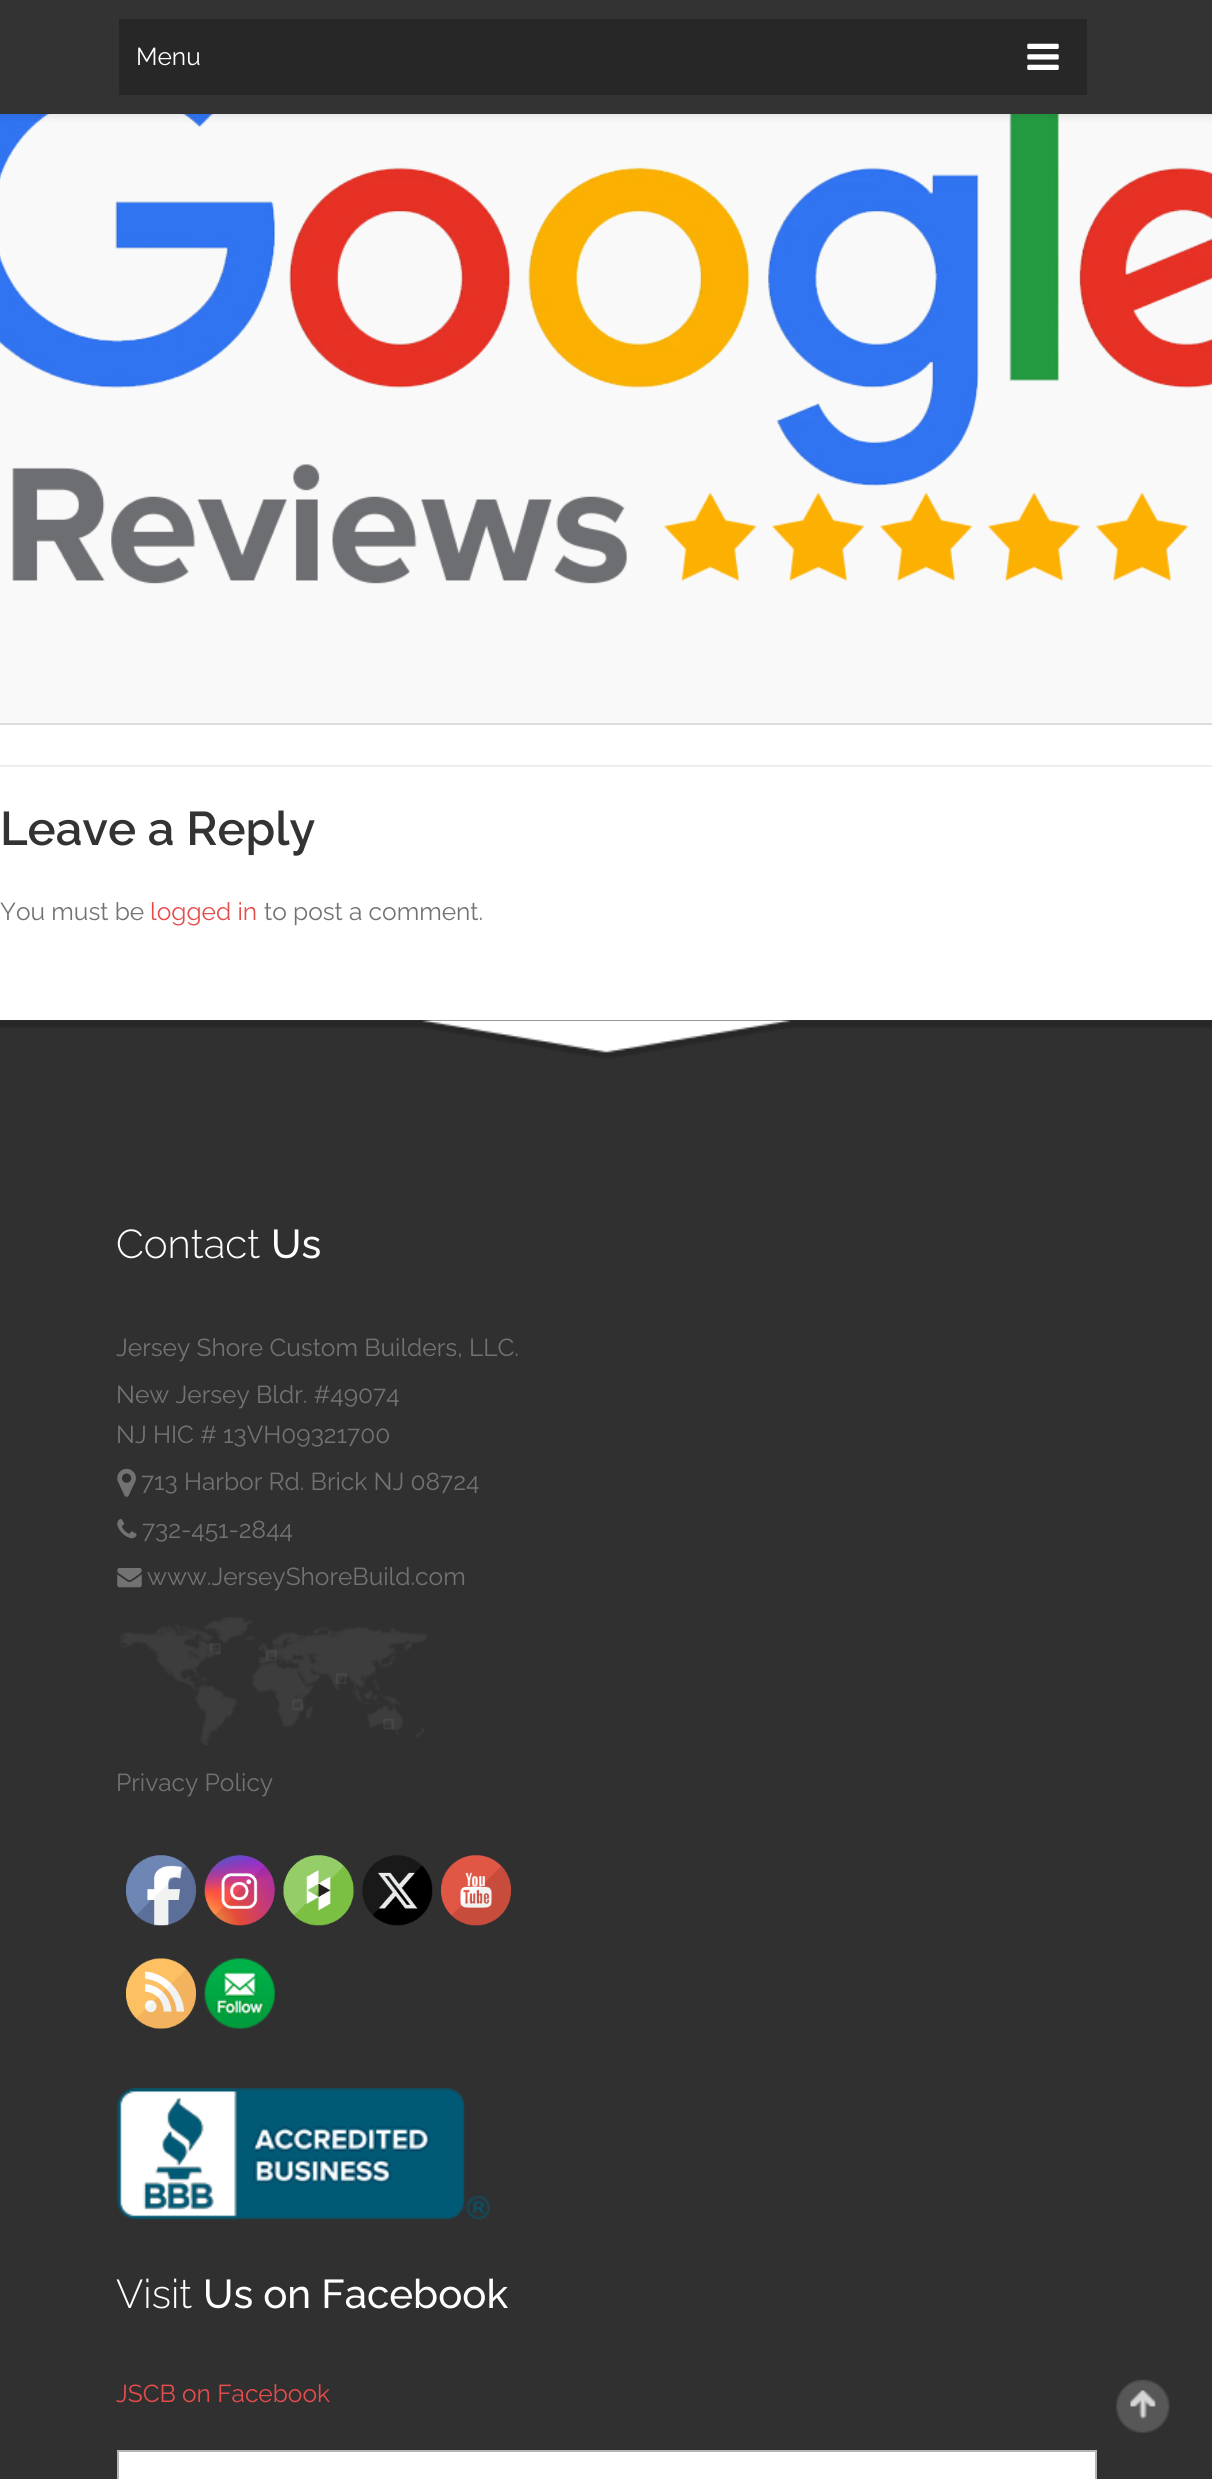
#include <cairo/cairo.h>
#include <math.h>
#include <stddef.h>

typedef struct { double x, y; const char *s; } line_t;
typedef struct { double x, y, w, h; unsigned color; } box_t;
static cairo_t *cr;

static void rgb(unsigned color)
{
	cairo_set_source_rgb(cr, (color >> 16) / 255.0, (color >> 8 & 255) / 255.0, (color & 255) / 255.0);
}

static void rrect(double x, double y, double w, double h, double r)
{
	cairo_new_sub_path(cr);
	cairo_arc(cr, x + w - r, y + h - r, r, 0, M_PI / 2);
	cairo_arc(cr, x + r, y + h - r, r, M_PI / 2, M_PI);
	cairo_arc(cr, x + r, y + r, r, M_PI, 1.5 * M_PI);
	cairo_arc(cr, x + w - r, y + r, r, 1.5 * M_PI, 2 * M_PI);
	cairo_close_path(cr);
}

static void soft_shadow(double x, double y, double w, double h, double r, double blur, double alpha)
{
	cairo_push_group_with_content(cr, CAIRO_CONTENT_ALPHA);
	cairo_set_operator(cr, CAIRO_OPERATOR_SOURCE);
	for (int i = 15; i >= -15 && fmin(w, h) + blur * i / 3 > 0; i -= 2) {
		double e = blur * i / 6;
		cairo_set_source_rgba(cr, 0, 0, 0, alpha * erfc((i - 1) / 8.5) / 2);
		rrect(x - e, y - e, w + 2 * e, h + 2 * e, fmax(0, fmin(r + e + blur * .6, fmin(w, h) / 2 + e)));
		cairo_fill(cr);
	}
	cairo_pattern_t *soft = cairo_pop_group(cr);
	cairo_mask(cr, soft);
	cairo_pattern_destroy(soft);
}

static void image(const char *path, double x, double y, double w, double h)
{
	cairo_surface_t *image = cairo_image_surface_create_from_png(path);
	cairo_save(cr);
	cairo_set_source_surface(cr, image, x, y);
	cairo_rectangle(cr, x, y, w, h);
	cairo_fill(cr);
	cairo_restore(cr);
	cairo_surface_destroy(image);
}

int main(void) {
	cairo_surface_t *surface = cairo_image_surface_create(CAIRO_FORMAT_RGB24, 1212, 2479);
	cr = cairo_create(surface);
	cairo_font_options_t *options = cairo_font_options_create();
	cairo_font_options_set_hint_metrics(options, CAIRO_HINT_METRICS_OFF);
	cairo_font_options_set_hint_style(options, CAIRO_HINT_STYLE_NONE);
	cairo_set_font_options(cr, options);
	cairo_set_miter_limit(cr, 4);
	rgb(0xffffff);
	cairo_paint(cr);
	rgb(0xf9f9f9);
	cairo_rectangle(cr, 0, 114, 1212, 609);
	cairo_fill(cr);
	image("img/2.png", 0, 114, 1212, 470);
	rgb(0x000000);
	soft_shadow(0, 2, 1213, 114, 0, 4.5, 0.1);
	rgb(0x333333);
	cairo_rectangle(cr, 0, 0, 1212, 114);
	cairo_fill(cr);
	rgb(0x272727);
	cairo_rectangle(cr, 119, 19, 968, 76);
	cairo_fill(cr);
	image("img/1.png", 1027, 43, 32, 27);
	{
		static const box_t items[] = {
			{0, 723, 1212, 2, 0xdddddd},
			{0, 765, 1212, 2, 0xeeeeee},
			{0, 1020, 1212, 1459, 0x303030},
		};
		for (size_t i = 0; i < sizeof items / sizeof *items; i++) {
			rgb(items[i].color);
			cairo_rectangle(cr, items[i].x, items[i].y, items[i].w, items[i].h);
			cairo_fill(cr);
		}
	}
	image("img/3.png", 0, 1020, 1212, 39);
	image("img/4.png", 117, 1468, 19, 29);
	image("img/5.png", 117, 1519, 20, 20);
	image("img/6.png", 117, 1568, 25, 20);
	image("img/7.png", 119, 1617, 308, 128);
	image("img/8.png", 126, 1855, 70, 71);
	image("img/9.png", 204, 1855, 71, 71);
	image("img/10.png", 283, 1855, 71, 71);
	image("img/11.png", 362, 1855, 71, 71);
	image("img/12.png", 441, 1855, 70, 71);
	image("img/13.png", 126, 1958, 70, 71);
	image("img/14.png", 204, 1958, 71, 71);
	image("img/15.png", 117, 2088, 373, 132);
	rgb(0xffffff);
	cairo_rectangle(cr, 118, 2451, 978, 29);
	cairo_fill_preserve(cr);
	rgb(0xb5b5b5);
	cairo_stroke(cr);
	image("img/16.png", 1116, 2379, 54, 54);
	cairo_select_font_face(cr, "Raleway", CAIRO_FONT_SLANT_NORMAL, CAIRO_FONT_WEIGHT_NORMAL);
	cairo_set_font_size(cr, 24.5);
	rgb(0xffffff);
	cairo_move_to(cr, 136, 65);
	cairo_show_text(cr, "Menu");
	cairo_select_font_face(cr, "Raleway SemiBold", CAIRO_FONT_SLANT_NORMAL, CAIRO_FONT_WEIGHT_NORMAL);
	cairo_set_font_size(cr, 47.25);
	rgb(0x333333);
	cairo_move_to(cr, 0, 845);
	cairo_show_text(cr, "Leave a Reply");
	cairo_select_font_face(cr, "Raleway", CAIRO_FONT_SLANT_NORMAL, CAIRO_FONT_WEIGHT_NORMAL);
	cairo_set_font_size(cr, 24.5);
	rgb(0x727272);
	cairo_move_to(cr, 0, 920);
	cairo_show_text(cr, "You must be");
	rgb(0xe54c4c);
	cairo_move_to(cr, 150, 920);
	cairo_show_text(cr, "logged in");
	rgb(0x727272);
	cairo_move_to(cr, 264, 920);
	cairo_show_text(cr, "to post a comment.");
	cairo_select_font_face(cr, "Raleway Light", CAIRO_FONT_SLANT_NORMAL, CAIRO_FONT_WEIGHT_NORMAL);
	cairo_set_font_size(cr, 40.25);
	rgb(0xffffff);
	cairo_move_to(cr, 116, 1258);
	cairo_show_text(cr, "Contact");
	cairo_select_font_face(cr, "Raleway Medium", CAIRO_FONT_SLANT_NORMAL, CAIRO_FONT_WEIGHT_NORMAL);
	cairo_move_to(cr, 271, 1258);
	cairo_show_text(cr, "Us");
	cairo_select_font_face(cr, "Raleway", CAIRO_FONT_SLANT_NORMAL, CAIRO_FONT_WEIGHT_NORMAL);
	cairo_set_font_size(cr, 24.5);
	rgb(0x727272);
	{
		static const line_t items[] = {
			{116, 1356, "Jersey Shore Custom Builders, LLC."},
			{116, 1403, "New Jersey Bldr. #49074"},
			{116, 1443, "NJ HIC # 13VH09321700"},
			{141, 1490, "713 Harbor Rd. Brick NJ 08724"},
			{142, 1538, "732-451-2844"},
			{147, 1585, "www.JerseyShoreBuild.com"},
			{116, 1791, "Privacy Policy"},
		};
		for (size_t i = 0; i < sizeof items / sizeof *items; i++) {
			cairo_move_to(cr, items[i].x, items[i].y);
			cairo_show_text(cr, items[i].s);
		}
	}
	cairo_select_font_face(cr, "Raleway Light", CAIRO_FONT_SLANT_NORMAL, CAIRO_FONT_WEIGHT_NORMAL);
	cairo_set_font_size(cr, 40.25);
	rgb(0xffffff);
	cairo_move_to(cr, 116, 2308);
	cairo_show_text(cr, "Visit");
	cairo_select_font_face(cr, "Raleway Medium", CAIRO_FONT_SLANT_NORMAL, CAIRO_FONT_WEIGHT_NORMAL);
	cairo_move_to(cr, 203, 2308);
	cairo_show_text(cr, "Us on Facebook");
	cairo_select_font_face(cr, "Raleway", CAIRO_FONT_SLANT_NORMAL, CAIRO_FONT_WEIGHT_NORMAL);
	cairo_set_font_size(cr, 24.5);
	rgb(0xe54c4c);
	cairo_move_to(cr, 116, 2402);
	cairo_show_text(cr, "JSCB on Facebook");
	cairo_surface_write_to_png(surface, "page.png");
	cairo_font_options_destroy(options);
	cairo_destroy(cr);
	cairo_surface_destroy(surface);
	return 0;
}
